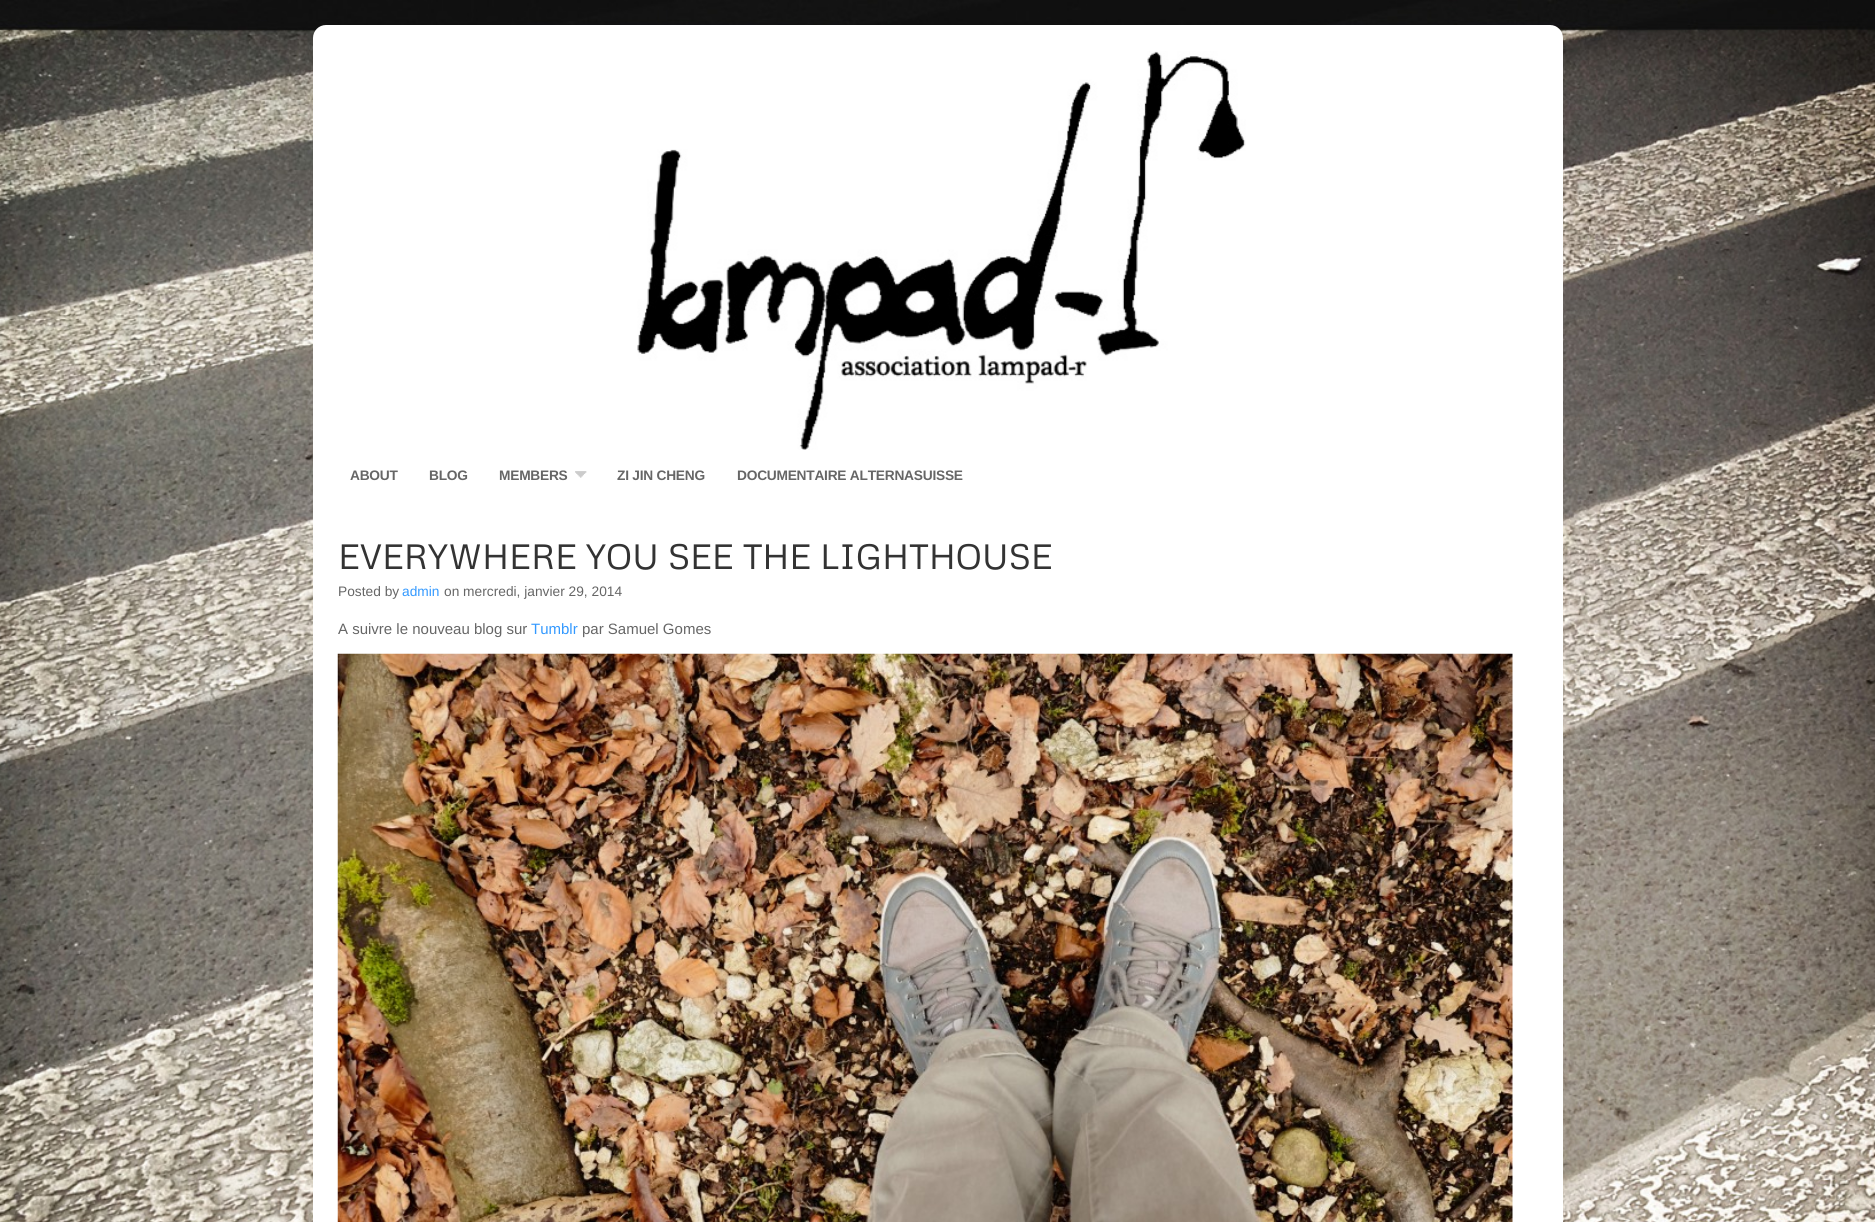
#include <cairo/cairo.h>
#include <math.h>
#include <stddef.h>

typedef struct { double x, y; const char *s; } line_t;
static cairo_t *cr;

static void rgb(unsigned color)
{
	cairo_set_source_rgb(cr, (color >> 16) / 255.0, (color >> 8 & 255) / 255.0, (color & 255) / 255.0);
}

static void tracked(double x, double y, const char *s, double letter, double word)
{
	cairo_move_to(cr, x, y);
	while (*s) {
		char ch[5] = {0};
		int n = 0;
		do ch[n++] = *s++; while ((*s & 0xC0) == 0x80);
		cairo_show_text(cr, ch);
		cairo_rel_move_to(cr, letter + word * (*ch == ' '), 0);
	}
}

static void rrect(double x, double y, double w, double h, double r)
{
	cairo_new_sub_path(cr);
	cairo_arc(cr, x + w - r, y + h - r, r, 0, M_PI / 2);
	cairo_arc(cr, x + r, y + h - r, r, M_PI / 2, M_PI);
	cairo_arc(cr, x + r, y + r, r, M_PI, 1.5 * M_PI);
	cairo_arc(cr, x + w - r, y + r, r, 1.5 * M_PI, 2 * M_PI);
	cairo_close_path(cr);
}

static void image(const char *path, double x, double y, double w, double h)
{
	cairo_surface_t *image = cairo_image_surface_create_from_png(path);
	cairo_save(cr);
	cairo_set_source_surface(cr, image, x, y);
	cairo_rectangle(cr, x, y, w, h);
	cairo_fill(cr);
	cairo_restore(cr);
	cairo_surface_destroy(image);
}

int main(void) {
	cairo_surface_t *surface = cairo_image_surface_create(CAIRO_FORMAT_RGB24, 1875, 1222);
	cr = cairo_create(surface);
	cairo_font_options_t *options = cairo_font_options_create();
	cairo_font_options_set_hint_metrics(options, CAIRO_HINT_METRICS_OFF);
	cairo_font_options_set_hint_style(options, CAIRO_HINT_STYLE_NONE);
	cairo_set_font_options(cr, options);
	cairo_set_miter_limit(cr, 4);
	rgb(0xffffff);
	cairo_paint(cr);
	image("img/1.png", 0, 0, 1875, 1222);
	rgb(0xffffff);
	rrect(313, 25, 1250, 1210, 13);
	cairo_fill(cr);
	image("img/2.png", 637, 51, 609, 399);
	image("img/3.png", 575, 471, 12, 7);
	image("img/4.png", 575, 471, 12, 7);
	image("img/5.png", 337, 653, 1176, 569);
	cairo_select_font_face(cr, "Liberation Sans", CAIRO_FONT_SLANT_NORMAL, CAIRO_FONT_WEIGHT_BOLD);
	cairo_set_font_size(cr, 13.75);
	rgb(0x666666);
	{
		static const line_t items[] = {
			{350, 480, "ABOUT"},
			{429, 480, "BLOG"},
			{499, 480, "MEMBERS"},
			{617, 480, "ZI JIN CHENG"},
			{737, 480, "DOCUMENTAIRE ALTERNASUISSE"},
		};
		for (size_t i = 0; i < sizeof items / sizeof *items; i++) {
			tracked(items[i].x, items[i].y, items[i].s, -0.25, 0);
		}
	}
	cairo_select_font_face(cr, "Metrophobic", CAIRO_FONT_SLANT_NORMAL, CAIRO_FONT_WEIGHT_NORMAL);
	cairo_set_font_size(cr, 35);
	rgb(0x333333);
	tracked(338, 569, "EVERYWHERE YOU SEE THE LIGHTHOUSE", -0.25, 0);
	cairo_select_font_face(cr, "Liberation Sans", CAIRO_FONT_SLANT_NORMAL, CAIRO_FONT_WEIGHT_NORMAL);
	cairo_set_font_size(cr, 13.75);
	rgb(0x666666);
	cairo_move_to(cr, 338, 596);
	cairo_show_text(cr, "Posted by");
	rgb(0x3399ff);
	cairo_move_to(cr, 402, 596);
	cairo_show_text(cr, "admin");
	rgb(0x666666);
	cairo_move_to(cr, 444, 596);
	cairo_show_text(cr, "on mercredi, janvier 29, 2014");
	cairo_set_font_size(cr, 15);
	cairo_move_to(cr, 338, 634);
	cairo_show_text(cr, "A suivre le nouveau blog sur");
	rgb(0x3399ff);
	cairo_move_to(cr, 531, 634);
	cairo_show_text(cr, "Tumblr");
	rgb(0x666666);
	cairo_move_to(cr, 582, 634);
	cairo_show_text(cr, "par Samuel Gomes");
	cairo_surface_write_to_png(surface, "page.png");
	cairo_font_options_destroy(options);
	cairo_destroy(cr);
	cairo_surface_destroy(surface);
	return 0;
}
